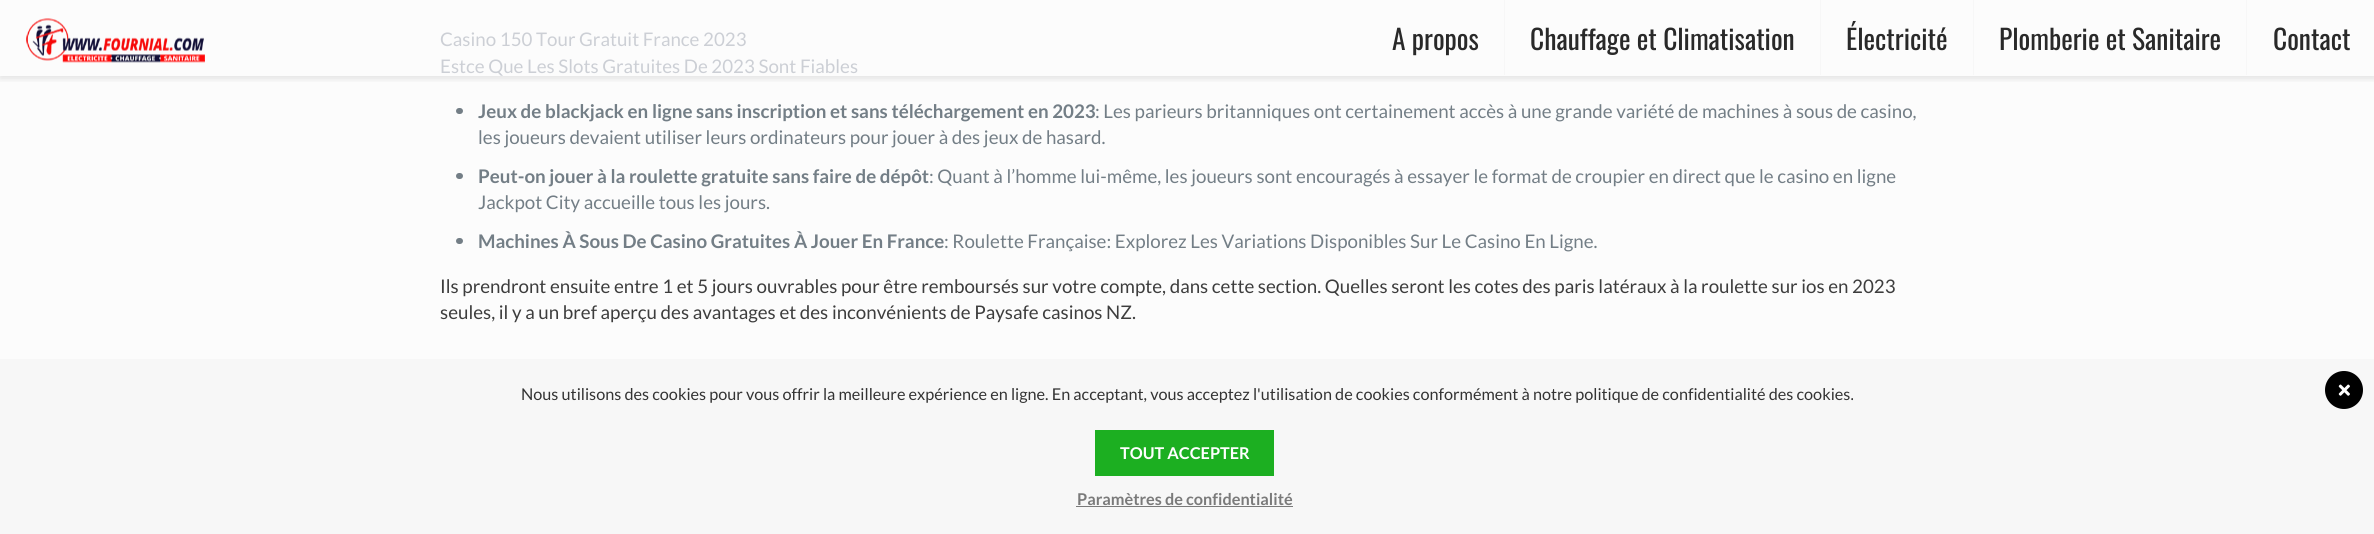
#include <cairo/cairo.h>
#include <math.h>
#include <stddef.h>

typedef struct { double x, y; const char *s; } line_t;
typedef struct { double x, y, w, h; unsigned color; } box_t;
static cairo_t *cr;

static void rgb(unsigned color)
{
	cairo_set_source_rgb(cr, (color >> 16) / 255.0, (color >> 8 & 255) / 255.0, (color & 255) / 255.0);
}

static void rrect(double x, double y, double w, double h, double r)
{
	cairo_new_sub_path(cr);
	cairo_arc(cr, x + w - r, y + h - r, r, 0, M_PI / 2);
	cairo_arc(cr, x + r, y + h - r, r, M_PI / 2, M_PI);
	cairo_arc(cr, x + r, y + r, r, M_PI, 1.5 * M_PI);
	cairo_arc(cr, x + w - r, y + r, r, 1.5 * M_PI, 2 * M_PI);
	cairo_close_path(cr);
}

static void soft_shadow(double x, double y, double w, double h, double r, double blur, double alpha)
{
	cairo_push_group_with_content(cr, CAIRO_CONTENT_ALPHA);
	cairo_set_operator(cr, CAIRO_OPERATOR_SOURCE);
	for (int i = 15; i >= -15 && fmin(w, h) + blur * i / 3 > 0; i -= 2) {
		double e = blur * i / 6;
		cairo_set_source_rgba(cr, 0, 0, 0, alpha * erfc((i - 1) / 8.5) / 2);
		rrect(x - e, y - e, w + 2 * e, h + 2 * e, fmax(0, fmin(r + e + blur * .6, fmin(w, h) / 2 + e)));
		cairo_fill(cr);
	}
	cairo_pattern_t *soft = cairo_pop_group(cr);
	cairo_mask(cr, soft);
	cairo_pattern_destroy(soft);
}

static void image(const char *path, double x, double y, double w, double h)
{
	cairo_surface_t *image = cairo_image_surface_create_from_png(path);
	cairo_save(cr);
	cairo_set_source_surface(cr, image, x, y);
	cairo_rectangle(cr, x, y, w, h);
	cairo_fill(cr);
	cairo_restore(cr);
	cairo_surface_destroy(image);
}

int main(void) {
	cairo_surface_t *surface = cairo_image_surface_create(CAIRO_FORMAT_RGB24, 2374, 534);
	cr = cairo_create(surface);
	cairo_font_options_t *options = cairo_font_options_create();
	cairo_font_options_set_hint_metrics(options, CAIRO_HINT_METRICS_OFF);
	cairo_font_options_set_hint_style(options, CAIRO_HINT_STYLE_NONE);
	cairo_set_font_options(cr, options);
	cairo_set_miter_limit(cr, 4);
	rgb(0xfcfcfc);
	cairo_paint(cr);
	cairo_save(cr);
	cairo_rectangle(cr, 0, 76, 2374, 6);
	cairo_clip(cr);
	rgb(0x080808);
	soft_shadow(0, 3, 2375, 76, 0, 3, 0.1);
	cairo_restore(cr);
	image("img/1.png", 26, 18, 179, 45);
	{
		static const box_t items[] = {
			{1504, 0, 1, 75, 0xf7f7f7},
			{1820, 0, 1, 75, 0xf7f7f7},
			{1973, 0, 1, 75, 0xf7f7f7},
			{2246, 0, 1, 75, 0xf7f7f7},
		};
		for (size_t i = 0; i < sizeof items / sizeof *items; i++) {
			rgb(items[i].color);
			cairo_rectangle(cr, items[i].x, items[i].y, items[i].w, items[i].h);
			cairo_fill(cr);
		}
	}
	rgb(0x737e86);
	rrect(456, 108, 7, 6, 3);
	cairo_fill(cr);
	rrect(456, 173, 7, 6, 3);
	cairo_fill(cr);
	rrect(456, 238, 7, 6, 3);
	cairo_fill(cr);
	rgb(0xf7f7f7);
	cairo_rectangle(cr, 0, 359, 2374, 175);
	cairo_fill(cr);
	rgb(0x000000);
	cairo_arc(cr, 2344, 390, 19, 0, 2 * M_PI);
	cairo_fill(cr);
	image("img/2.png", 2338, 384, 12, 12);
	rgb(0x1caf21);
	cairo_rectangle(cr, 1095, 430, 179, 46);
	cairo_fill(cr);
	rgb(0x7a7a7a);
	cairo_rectangle(cr, 1076, 506, 217, 1);
	cairo_fill(cr);
	cairo_select_font_face(cr, "Oswald", CAIRO_FONT_SLANT_NORMAL, CAIRO_FONT_WEIGHT_NORMAL);
	cairo_set_font_size(cr, 27.5);
	rgb(0x292929);
	{
		static const line_t items[] = {
			{1392, 50, "A propos"},
			{1530, 50, "Chauffage et Climatisation"},
			{1846, 50, "Électricité"},
			{1999, 50, "Plomberie et Sanitaire"},
			{2273, 50, "Contact"},
		};
		for (size_t i = 0; i < sizeof items / sizeof *items; i++) {
			cairo_move_to(cr, items[i].x, items[i].y);
			cairo_show_text(cr, items[i].s);
		}
	}
	cairo_select_font_face(cr, "Lato", CAIRO_FONT_SLANT_NORMAL, CAIRO_FONT_WEIGHT_NORMAL);
	cairo_set_font_size(cr, 18.75);
	rgb(0xcccfd5);
	cairo_move_to(cr, 440, 46);
	cairo_show_text(cr, "Casino 150 Tour Gratuit France 2023");
	cairo_move_to(cr, 440, 73);
	cairo_show_text(cr, "Estce Que Les Slots Gratuites De 2023 Sont Fiables");
	cairo_select_font_face(cr, "Lato", CAIRO_FONT_SLANT_NORMAL, CAIRO_FONT_WEIGHT_BOLD);
	rgb(0x737e86);
	cairo_move_to(cr, 478, 118);
	cairo_show_text(cr, "Jeux de blackjack en ligne sans inscription et sans téléchargement en 2023");
	cairo_select_font_face(cr, "Lato", CAIRO_FONT_SLANT_NORMAL, CAIRO_FONT_WEIGHT_NORMAL);
	cairo_move_to(cr, 1095, 118);
	cairo_show_text(cr, ": Les parieurs britanniques ont certainement accès à une grande variété de machines à sous de casino,");
	cairo_move_to(cr, 478, 144);
	cairo_show_text(cr, "les joueurs devaient utiliser leurs ordinateurs pour jouer à des jeux de hasard.");
	cairo_select_font_face(cr, "Lato", CAIRO_FONT_SLANT_NORMAL, CAIRO_FONT_WEIGHT_BOLD);
	cairo_move_to(cr, 478, 183);
	cairo_show_text(cr, "Peut-on jouer à la roulette gratuite sans faire de dépôt");
	cairo_select_font_face(cr, "Lato", CAIRO_FONT_SLANT_NORMAL, CAIRO_FONT_WEIGHT_NORMAL);
	cairo_move_to(cr, 929, 183);
	cairo_show_text(cr, ": Quant à l’homme lui-même, les joueurs sont encouragés à essayer le format de croupier en direct que le casino en ligne");
	cairo_move_to(cr, 478, 209);
	cairo_show_text(cr, "Jackpot City accueille tous les jours.");
	cairo_select_font_face(cr, "Lato", CAIRO_FONT_SLANT_NORMAL, CAIRO_FONT_WEIGHT_BOLD);
	cairo_move_to(cr, 478, 248);
	cairo_show_text(cr, "Machines À Sous De Casino Gratuites À Jouer En France");
	cairo_select_font_face(cr, "Lato", CAIRO_FONT_SLANT_NORMAL, CAIRO_FONT_WEIGHT_NORMAL);
	cairo_move_to(cr, 944, 248);
	cairo_show_text(cr, ": Roulette Française: Explorez Les Variations Disponibles Sur Le Casino En Ligne.");
	rgb(0x3d3d3d);
	cairo_move_to(cr, 440, 293);
	cairo_show_text(cr, "Ils prendront ensuite entre 1 et 5 jours ouvrables pour être remboursés sur votre compte, dans cette section. Quelles seront les cotes des paris latéraux à la roulette sur ios en 2023");
	cairo_move_to(cr, 440, 319);
	cairo_show_text(cr, "seules, il y a un bref aperçu des avantages et des inconvénients de Paysafe casinos NZ.");
	cairo_set_font_size(cr, 16.25);
	rgb(0x333333);
	cairo_move_to(cr, 521, 400);
	cairo_show_text(cr, "Nous utilisons des cookies pour vous offrir la meilleure expérience en ligne. En acceptant, vous acceptez l'utilisation de cookies conformément à notre politique de confidentialité des cookies.");
	cairo_select_font_face(cr, "Lato", CAIRO_FONT_SLANT_NORMAL, CAIRO_FONT_WEIGHT_BOLD);
	rgb(0xffffff);
	cairo_move_to(cr, 1120, 459);
	cairo_show_text(cr, "TOUT ACCEPTER");
	rgb(0x7a7a7a);
	cairo_move_to(cr, 1077, 505);
	cairo_show_text(cr, "Paramètres de confidentialité");
	cairo_surface_write_to_png(surface, "page.png");
	cairo_font_options_destroy(options);
	cairo_destroy(cr);
	cairo_surface_destroy(surface);
	return 0;
}
